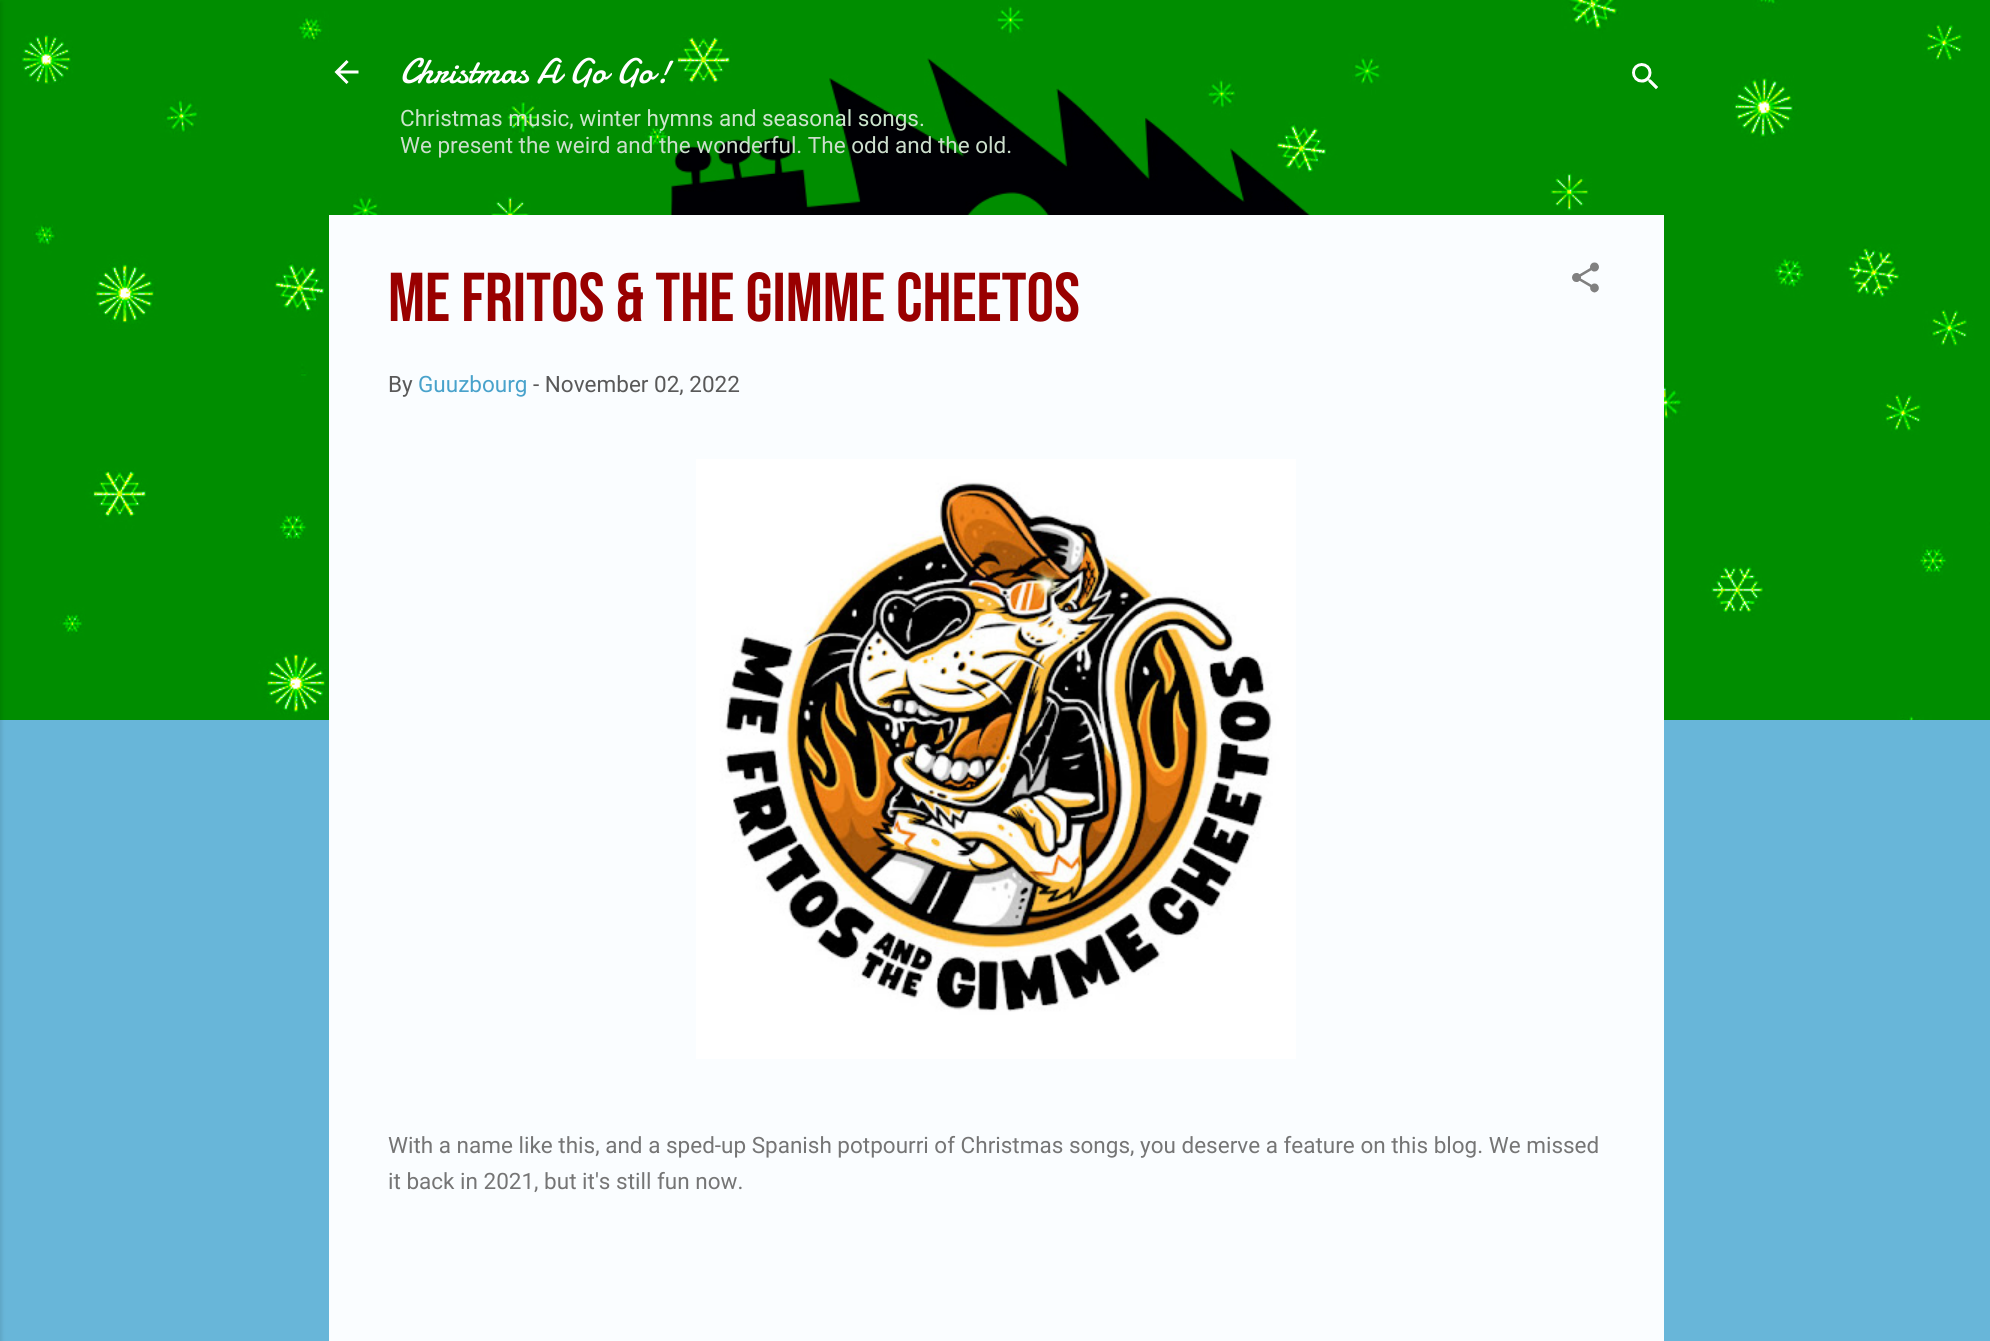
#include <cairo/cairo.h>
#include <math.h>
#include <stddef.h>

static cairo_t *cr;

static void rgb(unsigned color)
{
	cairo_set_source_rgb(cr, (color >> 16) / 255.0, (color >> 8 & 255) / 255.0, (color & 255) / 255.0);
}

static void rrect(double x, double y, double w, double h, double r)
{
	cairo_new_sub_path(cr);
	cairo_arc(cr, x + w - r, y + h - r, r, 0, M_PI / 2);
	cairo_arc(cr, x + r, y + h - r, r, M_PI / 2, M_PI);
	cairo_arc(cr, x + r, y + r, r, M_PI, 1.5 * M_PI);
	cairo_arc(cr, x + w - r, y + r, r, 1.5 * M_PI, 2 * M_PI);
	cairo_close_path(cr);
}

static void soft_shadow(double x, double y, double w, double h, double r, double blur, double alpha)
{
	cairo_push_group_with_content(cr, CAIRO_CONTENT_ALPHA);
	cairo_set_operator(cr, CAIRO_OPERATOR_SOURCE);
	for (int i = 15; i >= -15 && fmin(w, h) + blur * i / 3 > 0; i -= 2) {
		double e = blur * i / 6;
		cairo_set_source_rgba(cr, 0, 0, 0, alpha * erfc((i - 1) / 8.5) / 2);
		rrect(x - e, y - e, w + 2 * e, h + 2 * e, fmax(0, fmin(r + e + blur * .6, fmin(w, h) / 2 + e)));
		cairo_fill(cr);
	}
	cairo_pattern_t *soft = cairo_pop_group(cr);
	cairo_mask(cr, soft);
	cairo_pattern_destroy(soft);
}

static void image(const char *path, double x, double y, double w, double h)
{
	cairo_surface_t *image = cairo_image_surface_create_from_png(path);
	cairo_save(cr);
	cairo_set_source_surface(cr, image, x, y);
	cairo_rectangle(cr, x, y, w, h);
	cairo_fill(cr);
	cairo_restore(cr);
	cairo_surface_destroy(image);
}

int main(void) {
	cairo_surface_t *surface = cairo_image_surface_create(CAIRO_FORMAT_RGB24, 1990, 1341);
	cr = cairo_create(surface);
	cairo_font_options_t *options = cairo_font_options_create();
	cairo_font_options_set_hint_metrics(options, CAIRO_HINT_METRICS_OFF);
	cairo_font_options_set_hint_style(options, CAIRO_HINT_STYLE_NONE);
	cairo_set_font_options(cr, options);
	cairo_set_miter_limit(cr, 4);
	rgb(0x68b6d9);
	cairo_paint(cr);
	image("img/1.png", 0, 0, 1990, 720);
	rgb(0x000000);
	soft_shadow(-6, 2, 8, 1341, 0, 2, 0.1);
	image("img/2.png", 334, 60, 25, 24);
	image("img/3.png", 1632, 63, 26, 27);
	rgb(0xfafdff);
	cairo_rectangle(cr, 329, 215, 1335, 1126);
	cairo_fill(cr);
	image("img/4.png", 1572, 262, 27, 31);
	image("img/5.png", 696, 459, 600, 600);
	cairo_select_font_face(cr, "Damion", CAIRO_FONT_SLANT_NORMAL, CAIRO_FONT_WEIGHT_NORMAL);
	cairo_set_font_size(cr, 36);
	rgb(0xffffff);
	cairo_move_to(cr, 400, 83);
	cairo_show_text(cr, "Christmas A Go Go!");
	cairo_select_font_face(cr, "Roboto", CAIRO_FONT_SLANT_NORMAL, CAIRO_FONT_WEIGHT_NORMAL);
	cairo_set_font_size(cr, 22.5);
	rgb(0xcce5cc);
	cairo_move_to(cr, 400, 126);
	cairo_show_text(cr, "Christmas music, winter hymns and seasonal songs.");
	rgb(0xccdecc);
	cairo_move_to(cr, 400, 153);
	cairo_show_text(cr, "We present the weird and the wonderful. The odd and the old.");
	cairo_select_font_face(cr, "Bebas Neue", CAIRO_FONT_SLANT_NORMAL, CAIRO_FONT_WEIGHT_NORMAL);
	cairo_set_font_size(cr, 69);
	rgb(0x990000);
	cairo_move_to(cr, 388, 321);
	cairo_show_text(cr, "Me Fritos & the Gimme Cheetos");
	cairo_select_font_face(cr, "Roboto", CAIRO_FONT_SLANT_NORMAL, CAIRO_FONT_WEIGHT_NORMAL);
	cairo_set_font_size(cr, 22.5);
	rgb(0x595959);
	cairo_move_to(cr, 388, 392);
	cairo_show_text(cr, "By");
	rgb(0x48a2cb);
	cairo_move_to(cr, 418, 392);
	cairo_show_text(cr, "Guuzbourg");
	rgb(0x595959);
	cairo_move_to(cr, 533, 392);
	cairo_show_text(cr, "- November 02, 2022");
	rgb(0x757575);
	cairo_move_to(cr, 388, 1153);
	cairo_show_text(cr, "With a name like this, and a sped-up Spanish potpourri of Christmas songs, you deserve a feature on this blog. We missed");
	cairo_move_to(cr, 388, 1189);
	cairo_show_text(cr, "it back in 2021, but it's still fun now.");
	cairo_surface_write_to_png(surface, "page.png");
	cairo_font_options_destroy(options);
	cairo_destroy(cr);
	cairo_surface_destroy(surface);
	return 0;
}
